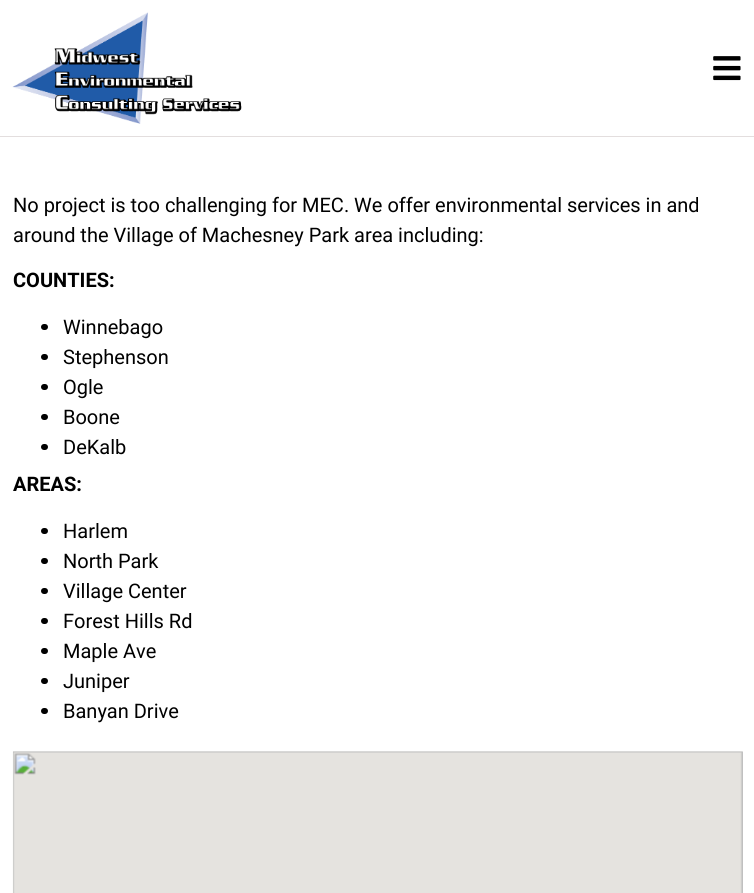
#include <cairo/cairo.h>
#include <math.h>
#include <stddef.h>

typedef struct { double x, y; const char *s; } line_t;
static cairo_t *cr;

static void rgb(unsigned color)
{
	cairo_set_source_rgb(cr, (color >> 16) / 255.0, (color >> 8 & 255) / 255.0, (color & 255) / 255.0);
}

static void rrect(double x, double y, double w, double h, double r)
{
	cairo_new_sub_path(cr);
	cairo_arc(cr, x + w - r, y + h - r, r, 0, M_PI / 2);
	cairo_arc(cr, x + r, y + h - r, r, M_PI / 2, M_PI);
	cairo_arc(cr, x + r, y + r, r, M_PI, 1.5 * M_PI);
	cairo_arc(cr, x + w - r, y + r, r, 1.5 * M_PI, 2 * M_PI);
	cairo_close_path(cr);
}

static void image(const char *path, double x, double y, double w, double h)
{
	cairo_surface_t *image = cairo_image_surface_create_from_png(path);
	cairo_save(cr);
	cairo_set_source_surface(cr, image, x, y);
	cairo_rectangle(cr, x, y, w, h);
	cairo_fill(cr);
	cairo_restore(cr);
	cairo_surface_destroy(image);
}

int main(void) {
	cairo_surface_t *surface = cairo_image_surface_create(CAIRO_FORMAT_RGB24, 754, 893);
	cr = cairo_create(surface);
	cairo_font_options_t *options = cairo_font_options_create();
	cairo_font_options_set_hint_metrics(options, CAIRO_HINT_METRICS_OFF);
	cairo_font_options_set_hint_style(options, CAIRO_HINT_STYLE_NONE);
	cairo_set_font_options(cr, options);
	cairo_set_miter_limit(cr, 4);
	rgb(0xffffff);
	cairo_paint(cr);
	rgb(0xe3dede);
	cairo_rectangle(cr, 0, 136, 754, 1);
	cairo_fill(cr);
	image("img/1.png", 12, 12, 230, 112);
	image("img/2.png", 713, 56, 28, 25);
	rgb(0x000000);
	rrect(41, 324, 7, 6, 3);
	cairo_fill(cr);
	rrect(41, 354, 7, 6, 3);
	cairo_fill(cr);
	rrect(41, 384, 7, 6, 3);
	cairo_fill(cr);
	rrect(41, 414, 7, 6, 3);
	cairo_fill(cr);
	rrect(41, 444, 7, 6, 3);
	cairo_fill(cr);
	rrect(41, 528, 7, 6, 3);
	cairo_fill(cr);
	rrect(41, 558, 7, 6, 3);
	cairo_fill(cr);
	rrect(41, 588, 7, 6, 3);
	cairo_fill(cr);
	rrect(41, 618, 7, 6, 3);
	cairo_fill(cr);
	rrect(41, 648, 7, 6, 3);
	cairo_fill(cr);
	rrect(41, 678, 7, 6, 3);
	cairo_fill(cr);
	rrect(41, 708, 7, 6, 3);
	cairo_fill(cr);
	image("img/3.png", 12, 751, 731, 142);
	cairo_select_font_face(cr, "Roboto", CAIRO_FONT_SLANT_NORMAL, CAIRO_FONT_WEIGHT_NORMAL);
	cairo_set_font_size(cr, 20);
	cairo_move_to(cr, 13, 212);
	cairo_show_text(cr, "No project is too challenging for MEC. We offer environmental services in and");
	cairo_move_to(cr, 13, 242);
	cairo_show_text(cr, "around the Village of Machesney Park area including:");
	cairo_select_font_face(cr, "Roboto", CAIRO_FONT_SLANT_NORMAL, CAIRO_FONT_WEIGHT_BOLD);
	cairo_move_to(cr, 13, 287);
	cairo_show_text(cr, "COUNTIES:");
	cairo_select_font_face(cr, "Roboto", CAIRO_FONT_SLANT_NORMAL, CAIRO_FONT_WEIGHT_NORMAL);
	{
		static const line_t items[] = {
			{63, 334, "Winnebago"},
			{63, 364, "Stephenson"},
			{63, 394, "Ogle"},
			{63, 424, "Boone"},
			{63, 454, "DeKalb"},
		};
		for (size_t i = 0; i < sizeof items / sizeof *items; i++) {
			cairo_move_to(cr, items[i].x, items[i].y);
			cairo_show_text(cr, items[i].s);
		}
	}
	cairo_select_font_face(cr, "Roboto", CAIRO_FONT_SLANT_NORMAL, CAIRO_FONT_WEIGHT_BOLD);
	cairo_move_to(cr, 13, 491);
	cairo_show_text(cr, "AREAS:");
	cairo_select_font_face(cr, "Roboto", CAIRO_FONT_SLANT_NORMAL, CAIRO_FONT_WEIGHT_NORMAL);
	{
		static const line_t items[] = {
			{63, 538, "Harlem"},
			{63, 568, "North Park"},
			{63, 598, "Village Center"},
			{63, 628, "Forest Hills Rd"},
			{63, 658, "Maple Ave"},
			{63, 688, "Juniper"},
			{63, 718, "Banyan Drive"},
		};
		for (size_t i = 0; i < sizeof items / sizeof *items; i++) {
			cairo_move_to(cr, items[i].x, items[i].y);
			cairo_show_text(cr, items[i].s);
		}
	}
	cairo_surface_write_to_png(surface, "page.png");
	cairo_font_options_destroy(options);
	cairo_destroy(cr);
	cairo_surface_destroy(surface);
	return 0;
}
